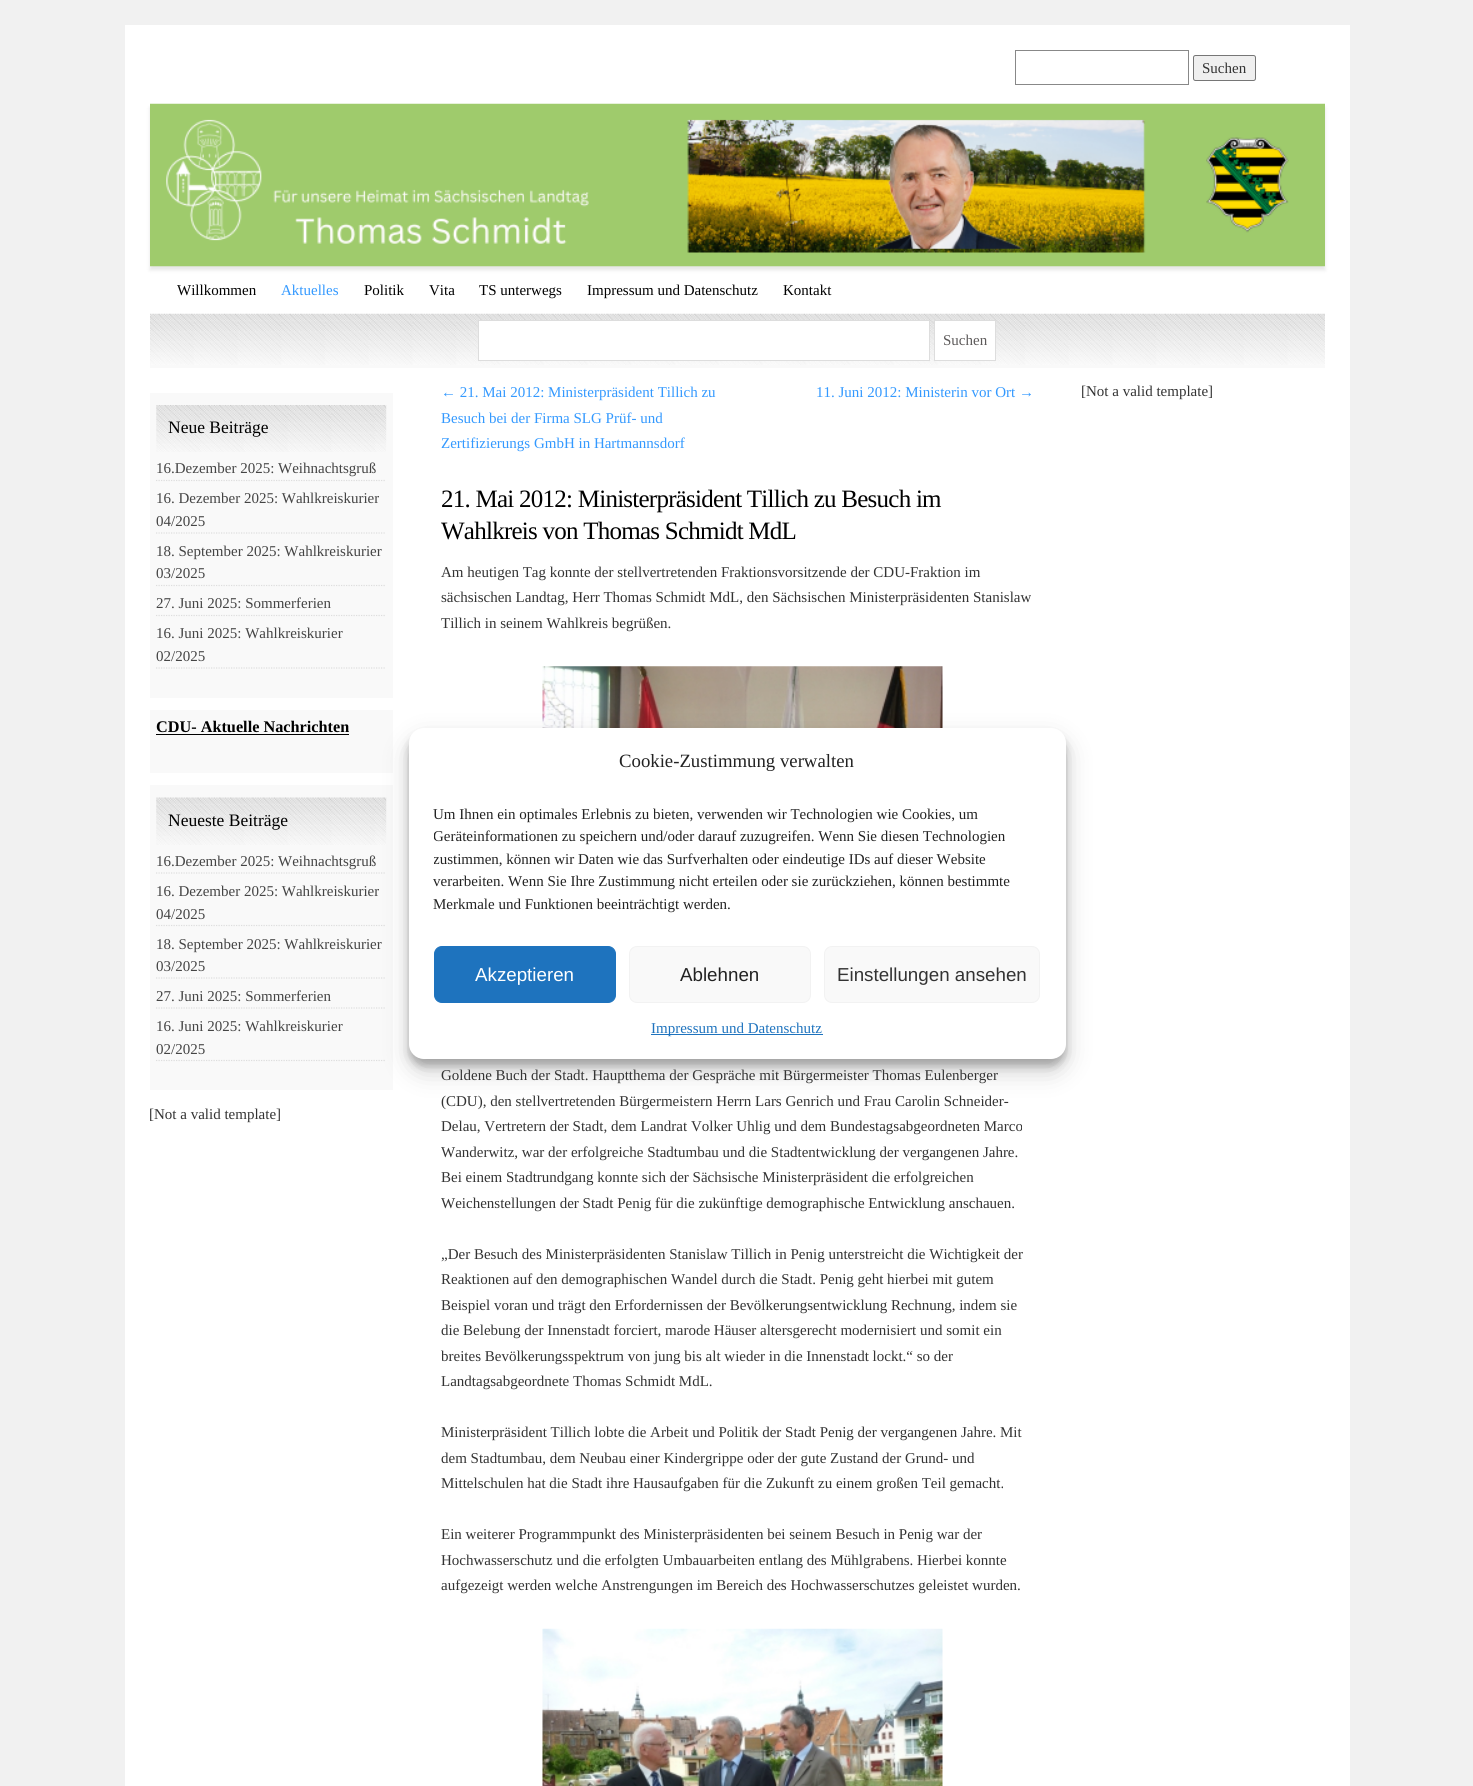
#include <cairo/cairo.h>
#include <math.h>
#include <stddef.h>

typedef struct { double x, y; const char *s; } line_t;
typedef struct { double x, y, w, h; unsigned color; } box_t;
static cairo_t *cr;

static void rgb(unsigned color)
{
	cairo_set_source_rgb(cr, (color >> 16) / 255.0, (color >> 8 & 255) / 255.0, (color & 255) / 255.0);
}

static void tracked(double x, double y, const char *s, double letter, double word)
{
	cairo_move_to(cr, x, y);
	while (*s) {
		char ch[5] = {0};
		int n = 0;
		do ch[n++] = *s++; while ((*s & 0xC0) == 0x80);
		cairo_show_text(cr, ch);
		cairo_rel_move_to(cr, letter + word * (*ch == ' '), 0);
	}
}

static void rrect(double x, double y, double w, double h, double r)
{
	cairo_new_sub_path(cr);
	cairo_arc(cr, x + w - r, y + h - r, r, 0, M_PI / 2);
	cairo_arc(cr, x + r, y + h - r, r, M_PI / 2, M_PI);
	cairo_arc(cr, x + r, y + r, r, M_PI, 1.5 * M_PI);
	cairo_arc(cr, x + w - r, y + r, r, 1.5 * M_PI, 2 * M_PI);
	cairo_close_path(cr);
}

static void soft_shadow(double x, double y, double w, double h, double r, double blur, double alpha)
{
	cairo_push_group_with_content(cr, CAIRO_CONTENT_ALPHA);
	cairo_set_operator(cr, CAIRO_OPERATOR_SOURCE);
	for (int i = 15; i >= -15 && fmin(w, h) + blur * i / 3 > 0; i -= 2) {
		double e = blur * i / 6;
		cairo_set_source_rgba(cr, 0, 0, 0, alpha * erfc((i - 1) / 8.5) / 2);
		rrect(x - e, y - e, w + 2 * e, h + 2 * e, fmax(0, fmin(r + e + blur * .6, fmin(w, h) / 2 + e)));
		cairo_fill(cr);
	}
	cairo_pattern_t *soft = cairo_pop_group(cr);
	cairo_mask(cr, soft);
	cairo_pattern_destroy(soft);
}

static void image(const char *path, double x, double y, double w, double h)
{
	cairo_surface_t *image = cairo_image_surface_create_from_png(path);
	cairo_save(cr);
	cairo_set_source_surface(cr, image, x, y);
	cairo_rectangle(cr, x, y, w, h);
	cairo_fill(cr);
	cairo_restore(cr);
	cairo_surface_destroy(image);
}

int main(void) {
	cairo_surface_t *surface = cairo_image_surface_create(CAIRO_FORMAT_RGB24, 1473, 1786);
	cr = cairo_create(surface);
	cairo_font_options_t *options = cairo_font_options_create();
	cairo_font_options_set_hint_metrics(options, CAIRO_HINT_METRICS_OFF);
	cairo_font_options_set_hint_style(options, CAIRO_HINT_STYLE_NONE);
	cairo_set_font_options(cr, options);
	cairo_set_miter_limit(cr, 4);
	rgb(0xf1f1f1);
	cairo_paint(cr);
	rgb(0xffffff);
	cairo_rectangle(cr, 125, 25, 1225, 1761);
	cairo_fill(cr);
	cairo_rectangle(cr, 1015.5, 50.5, 173, 34);
	rgb(0x888888);
	cairo_set_line_width(cr, 1);
	cairo_stroke(cr);
	rgb(0xefefef);
	rrect(1193.5, 55.5, 62, 25, 2);
	cairo_fill_preserve(cr);
	rgb(0x767676);
	cairo_stroke(cr);
	rgb(0x000000);
	soft_shadow(150, 108, 1175, 162, 0, 2, 0.1);
	image("img/1.png", 150, 103, 1175, 164);
	rgb(0xf9f9f9);
	cairo_rectangle(cr, 150, 365, 1175, 3);
	cairo_fill(cr);
	image("img/2.png", 150, 313, 1175, 52);
	rgb(0xffffff);
	cairo_rectangle(cr, 478.5, 320.5, 451, 40);
	cairo_fill_preserve(cr);
	rgb(0xdddddd);
	cairo_stroke(cr);
	rgb(0xffffff);
	cairo_rectangle(cr, 934.5, 320.5, 61, 40);
	cairo_fill_preserve(cr);
	rgb(0xdddddd);
	cairo_stroke(cr);
	rgb(0xf9f9f9);
	cairo_rectangle(cr, 150, 393, 243, 305);
	cairo_fill(cr);
	image("img/3.png", 156, 405, 231, 47);
	cairo_new_path(cr);
	cairo_move_to(cr, 156, 480.5);
	cairo_line_to(cr, 386, 480.5);
	rgb(0xdddddd);
	cairo_set_line_width(cr, 1.2);
	cairo_set_dash(cr, (double[]){1.25, 1.25}, 2, 0);
	cairo_stroke(cr);
	cairo_new_path(cr);
	cairo_move_to(cr, 156, 533);
	cairo_line_to(cr, 386, 533);
	cairo_stroke(cr);
	cairo_new_path(cr);
	cairo_move_to(cr, 156, 585.5);
	cairo_line_to(cr, 386, 585.5);
	cairo_stroke(cr);
	cairo_new_path(cr);
	cairo_move_to(cr, 156, 615.5);
	cairo_line_to(cr, 386, 615.5);
	cairo_stroke(cr);
	cairo_new_path(cr);
	cairo_move_to(cr, 156, 668);
	cairo_line_to(cr, 386, 668);
	cairo_stroke(cr);
	{
		static const box_t items[] = {
			{150, 710, 243, 63, 0xf9f9f9},
			{156, 734, 193, 1, 0x000000},
			{150, 785, 243, 305, 0xf9f9f9},
		};
		for (size_t i = 0; i < sizeof items / sizeof *items; i++) {
			rgb(items[i].color);
			cairo_rectangle(cr, items[i].x, items[i].y, items[i].w, items[i].h);
			cairo_fill(cr);
		}
	}
	image("img/4.png", 156, 797, 231, 48);
	cairo_new_path(cr);
	cairo_move_to(cr, 156, 873);
	cairo_line_to(cr, 386, 873);
	rgb(0xdddddd);
	cairo_stroke(cr);
	cairo_new_path(cr);
	cairo_move_to(cr, 156, 925.5);
	cairo_line_to(cr, 386, 925.5);
	cairo_stroke(cr);
	cairo_new_path(cr);
	cairo_move_to(cr, 156, 978);
	cairo_line_to(cr, 386, 978);
	cairo_stroke(cr);
	cairo_new_path(cr);
	cairo_move_to(cr, 156, 1008);
	cairo_line_to(cr, 386, 1008);
	cairo_stroke(cr);
	cairo_new_path(cr);
	cairo_move_to(cr, 156, 1060.5);
	cairo_line_to(cr, 386, 1060.5);
	cairo_stroke(cr);
	image("img/5.png", 542, 666, 401, 62);
	image("img/6.png", 542, 1628, 401, 158);
	rgb(0x000000);
	soft_shadow(409, 735, 657, 331, 15, 4, 0.23);
	soft_shadow(409, 740, 657, 331, 15, 12.5, 0.19);
	rgb(0xffffff);
	rrect(409, 728, 657, 331, 15);
	cairo_fill(cr);
	rgb(0x1e73be);
	rrect(434.5, 946.5, 181, 56, 7.5);
	cairo_fill_preserve(cr);
	cairo_set_line_width(cr, 1);
	cairo_set_dash(cr, NULL, 0, 0);
	cairo_stroke(cr);
	rgb(0xf9f9f9);
	rrect(629.5, 946.5, 181, 56, 7.5);
	cairo_fill_preserve(cr);
	rgb(0xf2f2f2);
	cairo_stroke(cr);
	rgb(0xf9f9f9);
	rrect(824.5, 946.5, 215, 56, 7.5);
	cairo_fill_preserve(cr);
	rgb(0xf2f2f2);
	cairo_stroke(cr);
	rgb(0x1e73be);
	cairo_rectangle(cr, 651, 1034, 172, 1);
	cairo_fill(cr);
	cairo_select_font_face(cr, "Liberation Serif", CAIRO_FONT_SLANT_NORMAL, CAIRO_FONT_WEIGHT_NORMAL);
	cairo_set_font_size(cr, 15);
	rgb(0x333333);
	cairo_move_to(cr, 1202, 73);
	cairo_show_text(cr, "Suchen");
	rgb(0x000000);
	cairo_move_to(cr, 177, 295);
	cairo_show_text(cr, "Willkommen");
	rgb(0x3399ff);
	cairo_move_to(cr, 281, 295);
	cairo_show_text(cr, "Aktuelles");
	rgb(0x000000);
	{
		static const line_t items[] = {
			{364, 295, "Politik"},
			{429, 295, "Vita"},
			{479, 295, "TS unterwegs"},
			{587, 295, "Impressum und Datenschutz"},
			{783, 295, "Kontakt"},
		};
		for (size_t i = 0; i < sizeof items / sizeof *items; i++) {
			cairo_move_to(cr, items[i].x, items[i].y);
			cairo_show_text(cr, items[i].s);
		}
	}
	rgb(0x5d5a5a);
	cairo_move_to(cr, 943, 345);
	cairo_show_text(cr, "Suchen");
	cairo_set_font_size(cr, 17.5);
	rgb(0x000000);
	cairo_move_to(cr, 168, 433);
	cairo_show_text(cr, "Neue Beiträge");
	cairo_set_font_size(cr, 15);
	rgb(0x444444);
	{
		static const line_t items[] = {
			{156, 473, "16.Dezember 2025: Weihnachtsgruß"},
			{156, 503, "16. Dezember 2025: Wahlkreiskurier"},
			{156, 526, "04/2025"},
			{156, 556, "18. September 2025: Wahlkreiskurier"},
			{156, 578, "03/2025"},
			{156, 608, "27. Juni 2025: Sommerferien"},
			{156, 638, "16. Juni 2025: Wahlkreiskurier"},
			{156, 661, "02/2025"},
		};
		for (size_t i = 0; i < sizeof items / sizeof *items; i++) {
			cairo_move_to(cr, items[i].x, items[i].y);
			cairo_show_text(cr, items[i].s);
		}
	}
	cairo_select_font_face(cr, "Liberation Serif", CAIRO_FONT_SLANT_NORMAL, CAIRO_FONT_WEIGHT_BOLD);
	cairo_set_font_size(cr, 16.25);
	rgb(0x000000);
	cairo_move_to(cr, 156, 732);
	cairo_show_text(cr, "CDU- Aktuelle Nachrichten");
	cairo_select_font_face(cr, "Liberation Serif", CAIRO_FONT_SLANT_NORMAL, CAIRO_FONT_WEIGHT_NORMAL);
	cairo_set_font_size(cr, 17.5);
	cairo_move_to(cr, 168, 826);
	cairo_show_text(cr, "Neueste Beiträge");
	cairo_set_font_size(cr, 15);
	rgb(0x444444);
	{
		static const line_t items[] = {
			{156, 866, "16.Dezember 2025: Weihnachtsgruß"},
			{156, 896, "16. Dezember 2025: Wahlkreiskurier"},
			{156, 919, "04/2025"},
			{156, 949, "18. September 2025: Wahlkreiskurier"},
			{156, 971, "03/2025"},
			{156, 1001, "27. Juni 2025: Sommerferien"},
			{156, 1031, "16. Juni 2025: Wahlkreiskurier"},
			{156, 1054, "02/2025"},
		};
		for (size_t i = 0; i < sizeof items / sizeof *items; i++) {
			cairo_move_to(cr, items[i].x, items[i].y);
			cairo_show_text(cr, items[i].s);
		}
	}
	rgb(0x333333);
	cairo_move_to(cr, 149, 1119);
	cairo_show_text(cr, "[Not a valid template]");
	rgb(0x3399ff);
	{
		static const line_t items[] = {
			{441, 397, "← 21. Mai 2012: Ministerpräsident Tillich zu"},
			{441, 423, "Besuch bei der Firma SLG Prüf- und"},
			{441, 448, "Zertifizierungs GmbH in Hartmannsdorf"},
			{816, 397, "11. Juni 2012: Ministerin vor Ort →"},
		};
		for (size_t i = 0; i < sizeof items / sizeof *items; i++) {
			cairo_move_to(cr, items[i].x, items[i].y);
			cairo_show_text(cr, items[i].s);
		}
	}
	cairo_set_font_size(cr, 25);
	rgb(0x000000);
	tracked(441, 507, "21. Mai 2012: Ministerpräsident Tillich zu Besuch im", -0.75, 0);
	tracked(441, 539, "Wahlkreis von Thomas Schmidt MdL", -0.75, 0);
	cairo_set_font_size(cr, 15);
	rgb(0x333333);
	{
		static const line_t items[] = {
			{441, 577, "Am heutigen Tag konnte der stellvertretenden Fraktionsvorsitzende der CDU-Fraktion im"},
			{441, 602, "sächsischen Landtag, Herr Thomas Schmidt MdL, den Sächsischen Ministerpräsidenten Stanislaw"},
			{441, 628, "Tillich in seinem Wahlkreis begrüßen."},
			{441, 1080, "Goldene Buch der Stadt. Hauptthema der Gespräche mit Bürgermeister Thomas Eulenberger"},
			{441, 1106, "(CDU), den stellvertretenden Bürgermeistern Herrn Lars Genrich und Frau Carolin Schneider-"},
			{441, 1131, "Delau, Vertretern der Stadt, dem Landrat Volker Uhlig und dem Bundestagsabgeordneten Marco"},
			{441, 1157, "Wanderwitz, war der erfolgreiche Stadtumbau und die Stadtentwicklung der vergangenen Jahre."},
			{441, 1182, "Bei einem Stadtrundgang konnte sich der Sächsische Ministerpräsident die erfolgreichen"},
			{441, 1208, "Weichenstellungen der Stadt Penig für die zukünftige demographische Entwicklung anschauen."},
			{441, 1259, "„Der Besuch des Ministerpräsidenten Stanislaw Tillich in Penig unterstreicht die Wichtigkeit der"},
			{441, 1284, "Reaktionen auf den demographischen Wandel durch die Stadt. Penig geht hierbei mit gutem"},
			{441, 1310, "Beispiel voran und trägt den Erfordernissen der Bevölkerungsentwicklung Rechnung, indem sie"},
			{441, 1335, "die Belebung der Innenstadt forciert, marode Häuser altersgerecht modernisiert und somit ein"},
			{441, 1361, "breites Bevölkerungsspektrum von jung bis alt wieder in die Innenstadt lockt.“ so der"},
			{441, 1386, "Landtagsabgeordnete Thomas Schmidt MdL."},
			{441, 1437, "Ministerpräsident Tillich lobte die Arbeit und Politik der Stadt Penig der vergangenen Jahre. Mit"},
			{441, 1463, "dem Stadtumbau, dem Neubau einer Kindergrippe oder der gute Zustand der Grund- und"},
			{441, 1488, "Mittelschulen hat die Stadt ihre Hausaufgaben für die Zukunft zu einem großen Teil gemacht."},
			{441, 1539, "Ein weiterer Programmpunkt des Ministerpräsidenten bei seinem Besuch in Penig war der"},
			{441, 1565, "Hochwasserschutz und die erfolgten Umbauarbeiten entlang des Mühlgrabens. Hierbei konnte"},
			{441, 1590, "aufgezeigt werden welche Anstrengungen im Bereich des Hochwasserschutzes geleistet wurden."},
			{1081, 396, "[Not a valid template]"},
		};
		for (size_t i = 0; i < sizeof items / sizeof *items; i++) {
			cairo_move_to(cr, items[i].x, items[i].y);
			cairo_show_text(cr, items[i].s);
		}
	}
	cairo_set_font_size(cr, 18.75);
	rgb(0x222222);
	cairo_move_to(cr, 619, 767);
	cairo_show_text(cr, "Cookie-Zustimmung verwalten");
	cairo_set_font_size(cr, 15);
	cairo_move_to(cr, 433, 819);
	cairo_show_text(cr, "Um Ihnen ein optimales Erlebnis zu bieten, verwenden wir Technologien wie Cookies, um");
	cairo_save(cr);
	cairo_rectangle(cr, 434, 803, 607, 118);
	cairo_clip(cr);
	cairo_move_to(cr, 433, 841);
	cairo_show_text(cr, "Geräteinformationen zu speichern und/oder darauf zuzugreifen. Wenn Sie diesen Technologien");
	cairo_move_to(cr, 433, 864);
	cairo_show_text(cr, "zustimmen, können wir Daten wie das Surfverhalten oder eindeutige IDs auf dieser Website");
	cairo_restore(cr);
	cairo_move_to(cr, 433, 886);
	cairo_show_text(cr, "verarbeiten. Wenn Sie Ihre Zustimmung nicht erteilen oder sie zurückziehen, können bestimmte");
	cairo_move_to(cr, 433, 909);
	cairo_show_text(cr, "Merkmale und Funktionen beeinträchtigt werden.");
	cairo_select_font_face(cr, "Liberation Sans", CAIRO_FONT_SLANT_NORMAL, CAIRO_FONT_WEIGHT_NORMAL);
	cairo_set_font_size(cr, 18.75);
	rgb(0xffffff);
	cairo_move_to(cr, 475, 981);
	cairo_show_text(cr, "Akzeptieren");
	rgb(0x222222);
	cairo_move_to(cr, 680, 981);
	cairo_show_text(cr, "Ablehnen");
	rgb(0x333333);
	cairo_move_to(cr, 837, 981);
	cairo_show_text(cr, "Einstellungen ansehen");
	cairo_select_font_face(cr, "Liberation Serif", CAIRO_FONT_SLANT_NORMAL, CAIRO_FONT_WEIGHT_NORMAL);
	cairo_set_font_size(cr, 15);
	rgb(0x1e73be);
	cairo_move_to(cr, 651, 1033);
	cairo_show_text(cr, "Impressum und Datenschutz");
	cairo_surface_write_to_png(surface, "page.png");
	cairo_font_options_destroy(options);
	cairo_destroy(cr);
	cairo_surface_destroy(surface);
	return 0;
}
